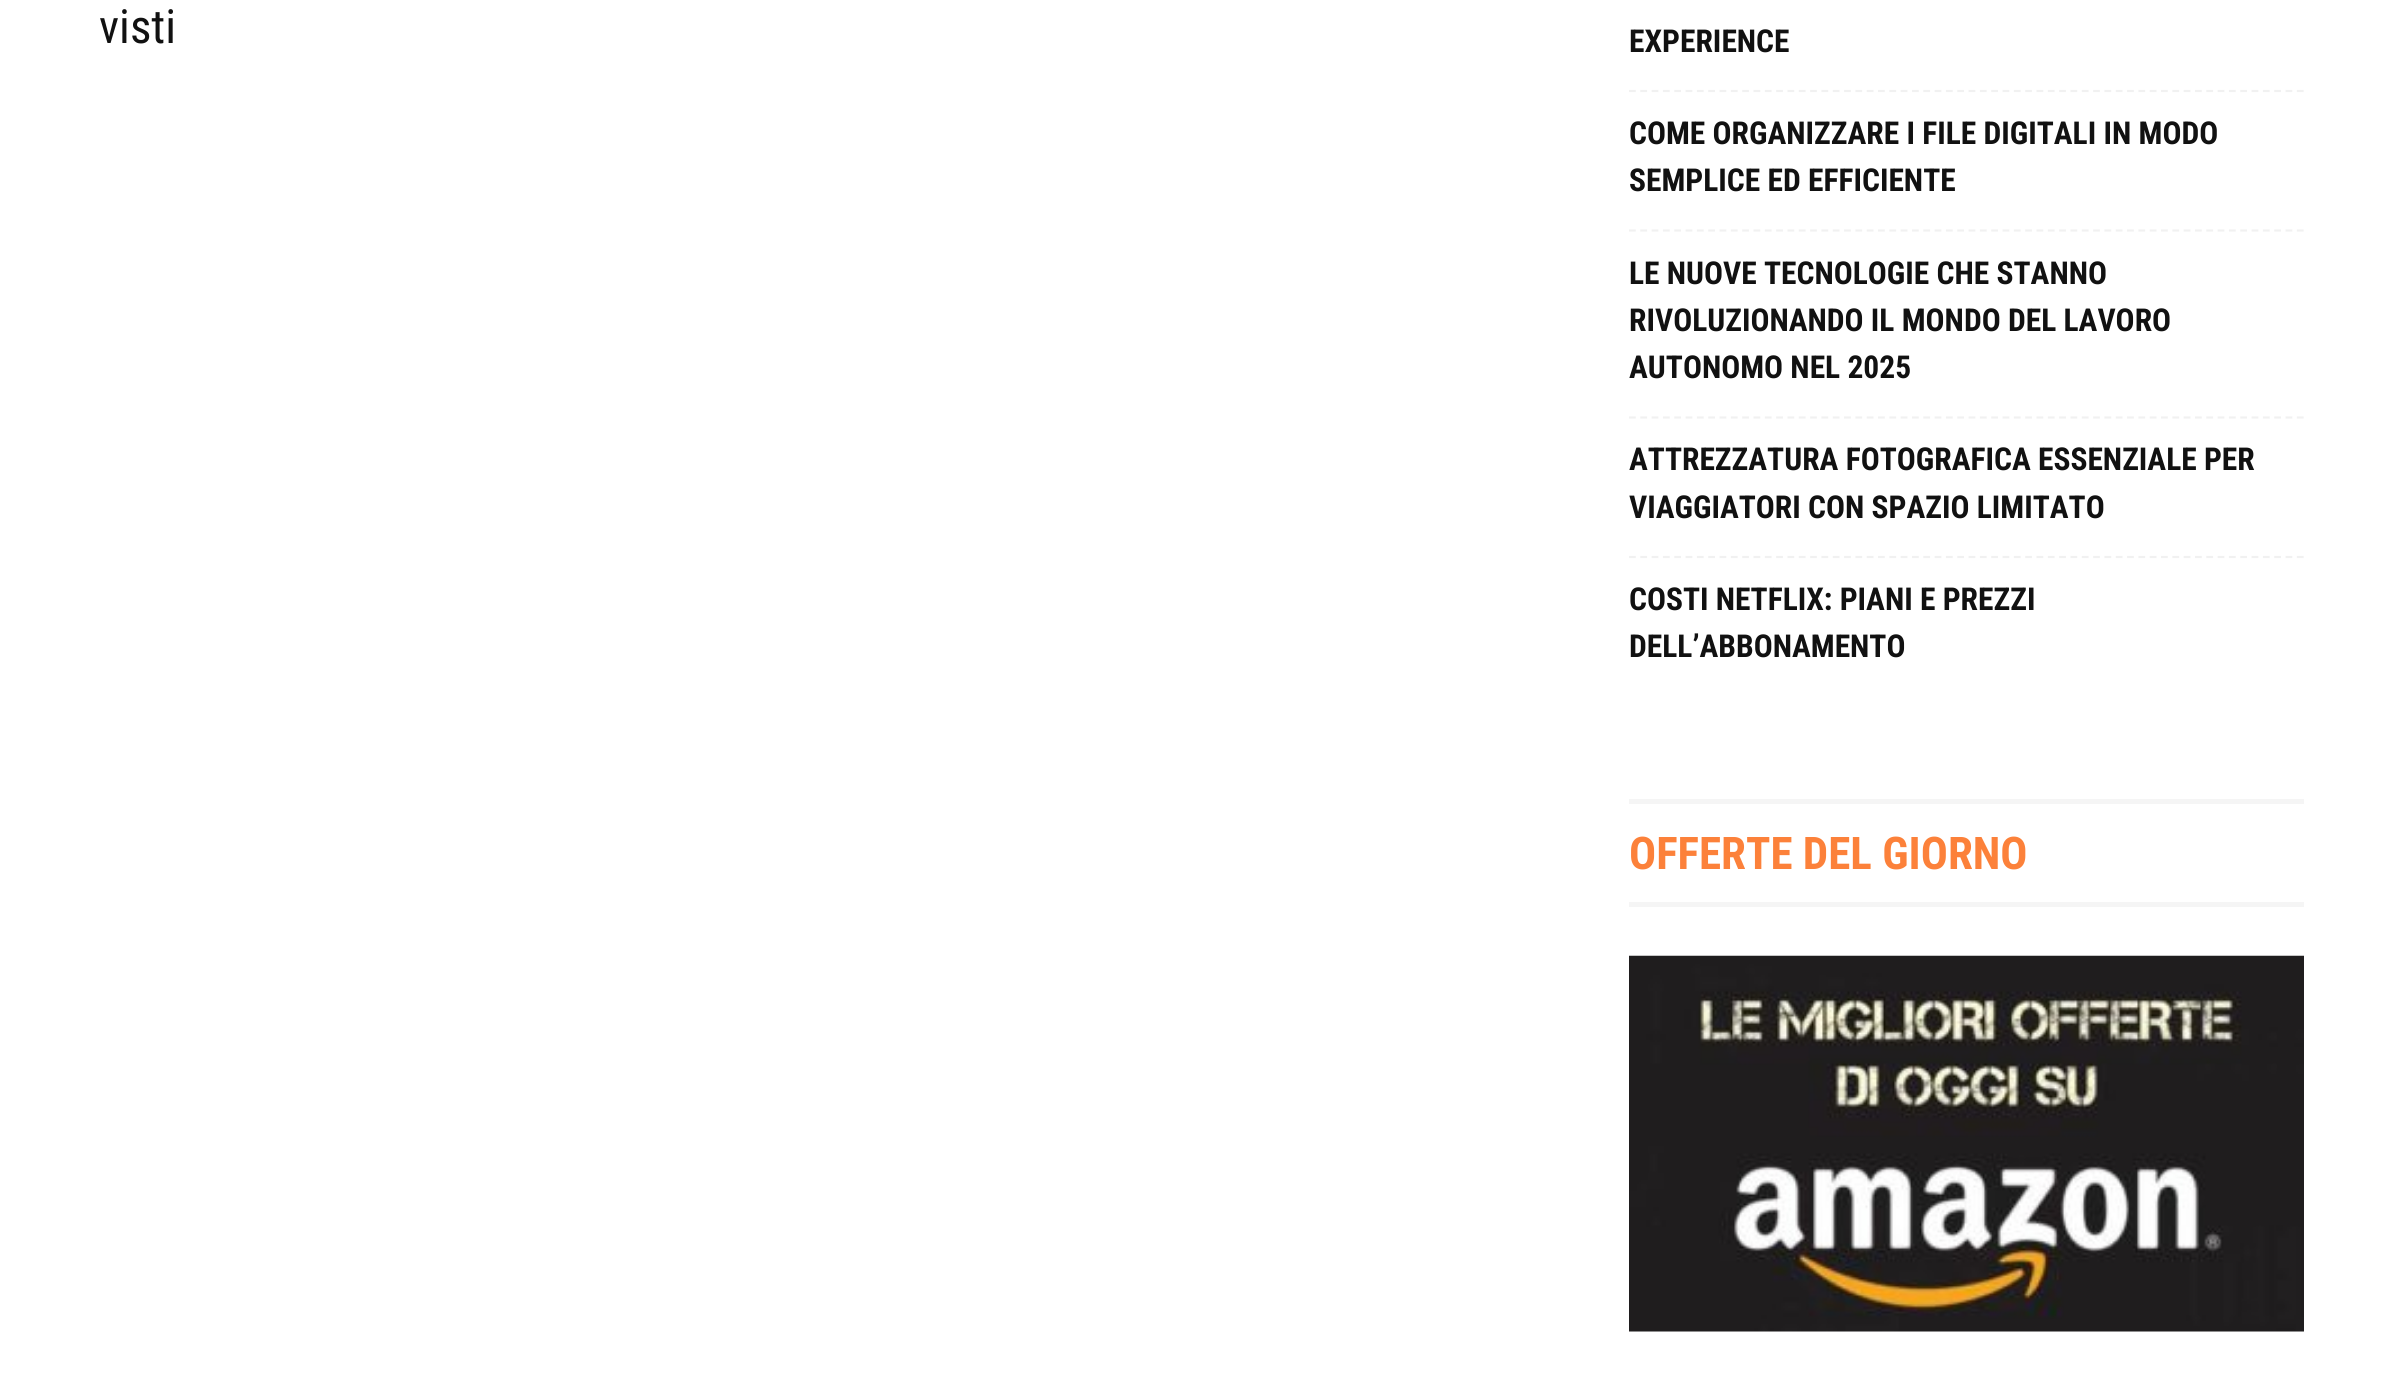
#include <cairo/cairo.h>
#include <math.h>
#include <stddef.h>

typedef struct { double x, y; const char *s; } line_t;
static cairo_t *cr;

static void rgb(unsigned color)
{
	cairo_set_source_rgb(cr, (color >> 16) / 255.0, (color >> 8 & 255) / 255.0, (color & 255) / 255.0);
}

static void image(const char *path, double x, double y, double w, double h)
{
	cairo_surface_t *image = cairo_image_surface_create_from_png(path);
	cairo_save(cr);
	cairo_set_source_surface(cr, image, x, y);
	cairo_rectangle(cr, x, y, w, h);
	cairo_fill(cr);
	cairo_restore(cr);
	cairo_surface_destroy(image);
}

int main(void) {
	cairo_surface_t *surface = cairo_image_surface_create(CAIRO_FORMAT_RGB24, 2401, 1390);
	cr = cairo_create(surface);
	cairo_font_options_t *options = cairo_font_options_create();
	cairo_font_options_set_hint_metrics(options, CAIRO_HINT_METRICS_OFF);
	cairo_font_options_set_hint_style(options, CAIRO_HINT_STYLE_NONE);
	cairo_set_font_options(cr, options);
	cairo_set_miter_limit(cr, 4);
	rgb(0xffffff);
	cairo_paint(cr);
	cairo_new_path(cr);
	cairo_move_to(cr, 1629, 91);
	cairo_line_to(cr, 2304, 91);
	rgb(0xf1f1f1);
	cairo_set_line_width(cr, 2.2);
	cairo_set_dash(cr, (double[]){6.75, 4.57}, 2, 0);
	cairo_stroke(cr);
	cairo_new_path(cr);
	cairo_move_to(cr, 1629, 230.5);
	cairo_line_to(cr, 2304, 230.5);
	cairo_stroke(cr);
	cairo_new_path(cr);
	cairo_move_to(cr, 1629, 417.5);
	cairo_line_to(cr, 2304, 417.5);
	cairo_stroke(cr);
	cairo_new_path(cr);
	cairo_move_to(cr, 1629, 557);
	cairo_line_to(cr, 2304, 557);
	cairo_stroke(cr);
	rgb(0xf5f5f5);
	cairo_rectangle(cr, 1629, 799, 675, 5);
	cairo_fill(cr);
	cairo_rectangle(cr, 1629, 902, 675, 5);
	cairo_fill(cr);
	image("img/1.png", 1629, 955, 675, 377);
	cairo_select_font_face(cr, "Roboto Condensed", CAIRO_FONT_SLANT_NORMAL, CAIRO_FONT_WEIGHT_NORMAL);
	cairo_set_font_size(cr, 47);
	rgb(0x111111);
	cairo_move_to(cr, 99, 43);
	cairo_show_text(cr, "visti");
	cairo_select_font_face(cr, "Roboto Condensed", CAIRO_FONT_SLANT_NORMAL, CAIRO_FONT_WEIGHT_BOLD);
	cairo_set_font_size(cr, 31.5);
	{
		static const line_t items[] = {
			{1629, 52, "EXPERIENCE"},
			{1629, 144, "COME ORGANIZZARE I FILE DIGITALI IN MODO"},
			{1629, 191, "SEMPLICE ED EFFICIENTE"},
			{1629, 284, "LE NUOVE TECNOLOGIE CHE STANNO"},
			{1629, 331, "RIVOLUZIONANDO IL MONDO DEL LAVORO"},
			{1629, 378, "AUTONOMO NEL 2025"},
			{1629, 470, "ATTREZZATURA FOTOGRAFICA ESSENZIALE PER"},
			{1629, 518, "VIAGGIATORI CON SPAZIO LIMITATO"},
			{1629, 610, "COSTI NETFLIX: PIANI E PREZZI"},
			{1629, 657, "DELL’ABBONAMENTO"},
		};
		for (size_t i = 0; i < sizeof items / sizeof *items; i++) {
			cairo_move_to(cr, items[i].x, items[i].y);
			cairo_show_text(cr, items[i].s);
		}
	}
	cairo_set_font_size(cr, 45);
	rgb(0xfc813a);
	cairo_move_to(cr, 1629, 869);
	cairo_show_text(cr, "OFFERTE DEL GIORNO");
	cairo_surface_write_to_png(surface, "page.png");
	cairo_font_options_destroy(options);
	cairo_destroy(cr);
	cairo_surface_destroy(surface);
	return 0;
}
